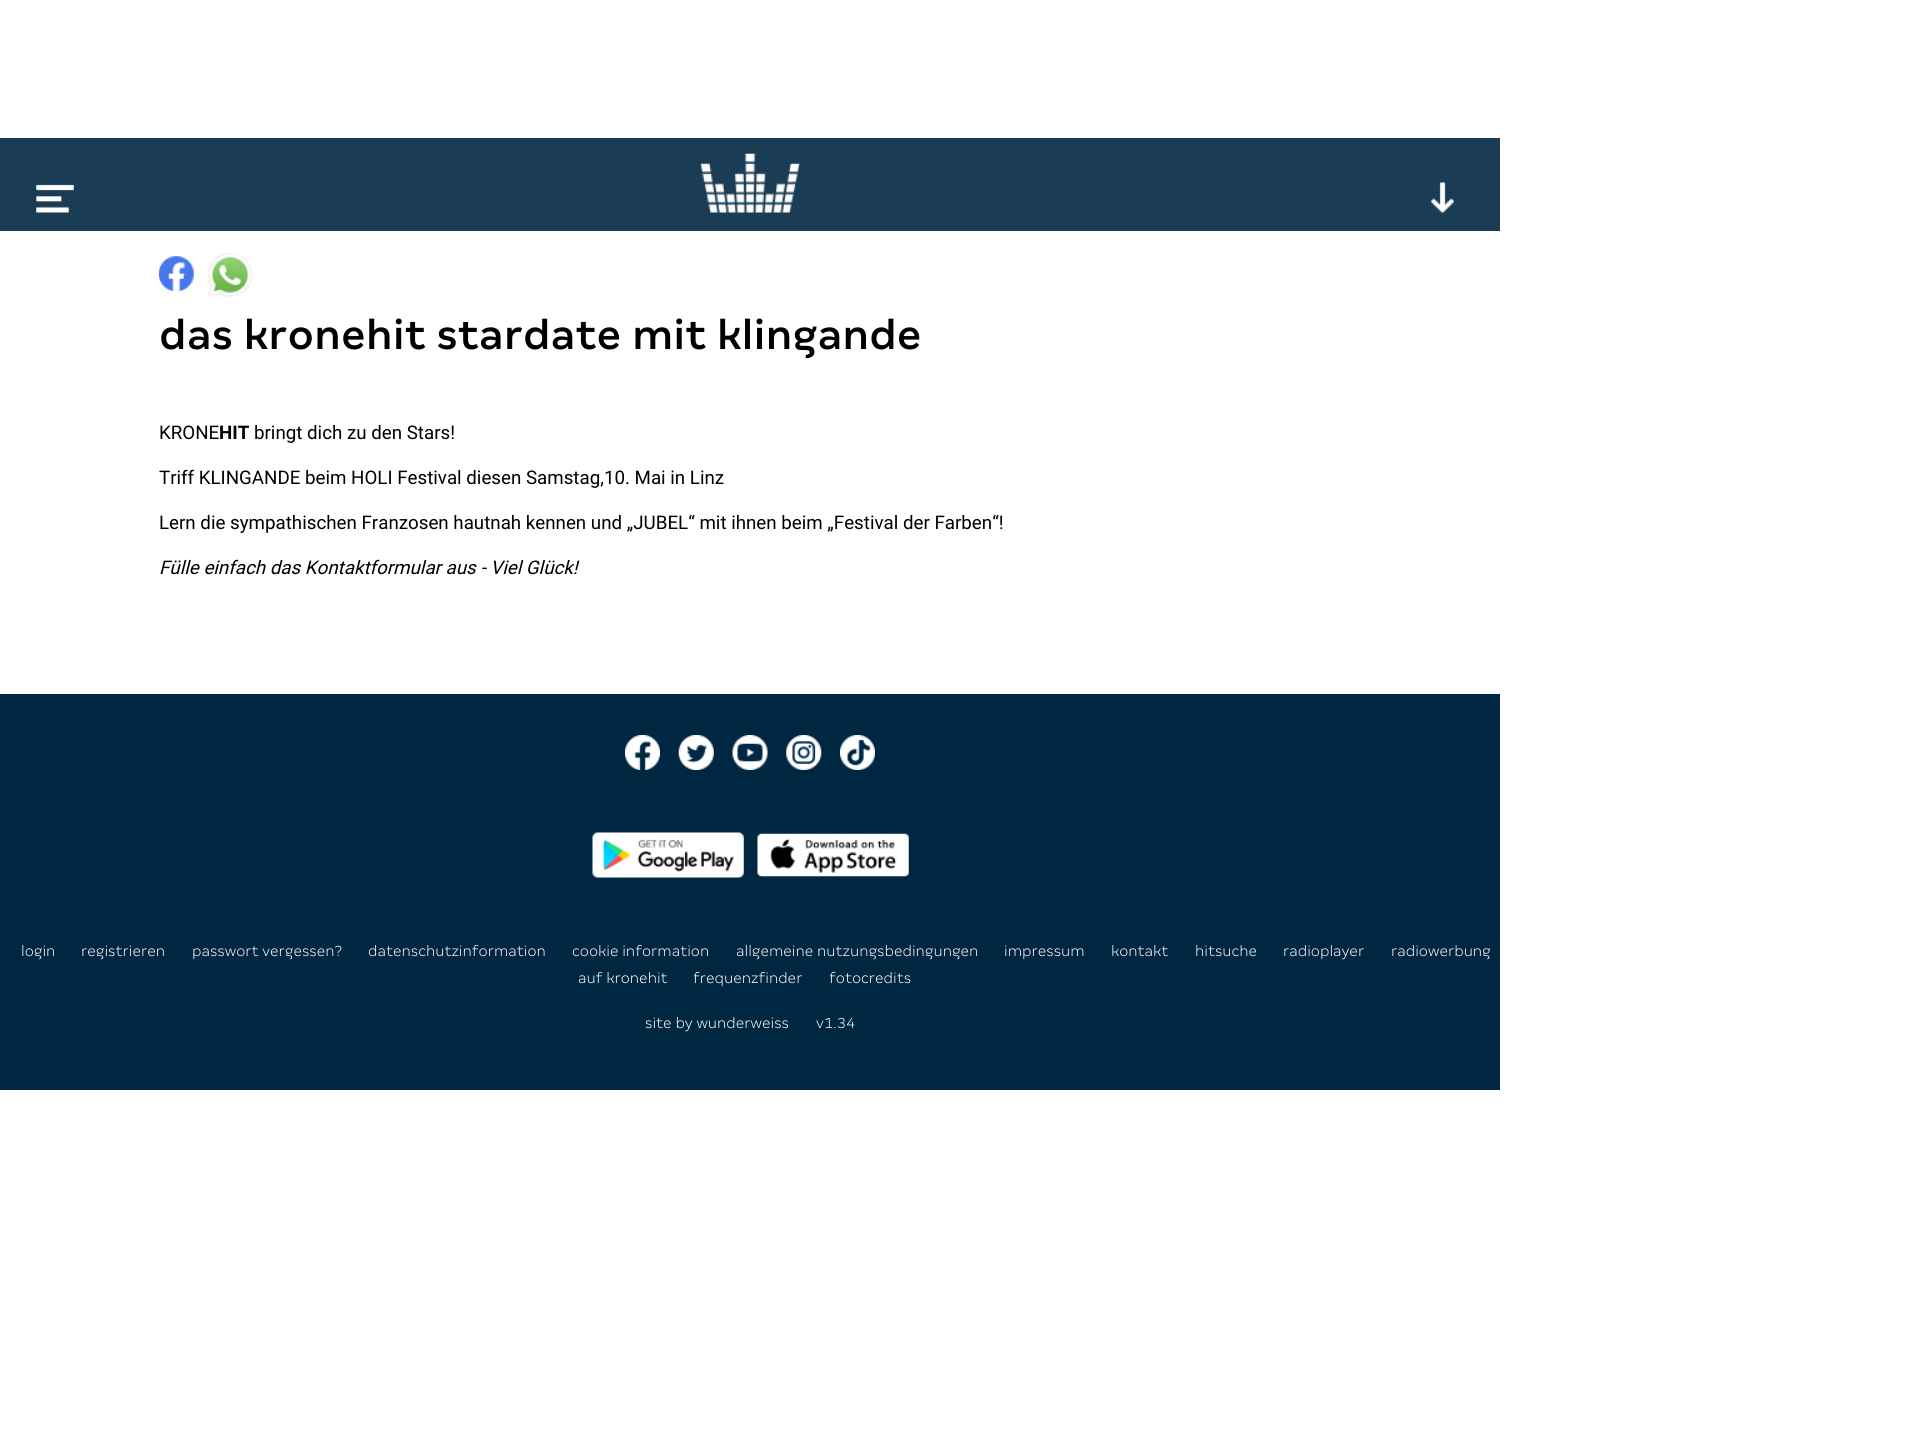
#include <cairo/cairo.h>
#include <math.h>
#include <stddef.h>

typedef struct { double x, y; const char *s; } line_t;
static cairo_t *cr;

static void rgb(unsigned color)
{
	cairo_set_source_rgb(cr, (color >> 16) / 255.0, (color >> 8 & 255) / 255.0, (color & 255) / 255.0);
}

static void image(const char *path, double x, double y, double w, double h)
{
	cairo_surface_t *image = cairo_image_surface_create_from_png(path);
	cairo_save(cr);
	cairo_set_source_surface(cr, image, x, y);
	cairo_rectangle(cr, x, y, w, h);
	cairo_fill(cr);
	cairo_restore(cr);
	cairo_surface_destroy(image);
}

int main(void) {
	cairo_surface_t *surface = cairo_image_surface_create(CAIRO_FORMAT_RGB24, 1909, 1454);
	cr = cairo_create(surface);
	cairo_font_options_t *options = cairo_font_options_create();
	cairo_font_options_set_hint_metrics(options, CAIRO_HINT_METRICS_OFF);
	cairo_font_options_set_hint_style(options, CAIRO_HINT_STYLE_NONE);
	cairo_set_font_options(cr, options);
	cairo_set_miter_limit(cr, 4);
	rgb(0xffffff);
	cairo_paint(cr);
	rgb(0x1a3d55);
	cairo_rectangle(cr, 0, 138, 1500, 93);
	cairo_fill(cr);
	image("img/1.png", 36, 184, 38, 29);
	image("img/2.png", 700, 153, 101, 60);
	image("img/3.png", 1431, 182, 23, 31);
	image("img/4.png", 158, 256, 36, 36);
	image("img/5.png", 208, 253, 45, 44);
	rgb(0x002742);
	cairo_rectangle(cr, 0, 694, 1500, 396);
	cairo_fill(cr);
	image("img/6.png", 625, 735, 35, 35);
	image("img/7.png", 678, 735, 36, 35);
	image("img/8.png", 732, 735, 36, 35);
	image("img/9.png", 786, 735, 36, 35);
	image("img/10.png", 840, 735, 35, 35);
	image("img/11.png", 592, 832, 152, 46);
	image("img/12.png", 757, 833, 152, 44);
	cairo_select_font_face(cr, "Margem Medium", CAIRO_FONT_SLANT_NORMAL, CAIRO_FONT_WEIGHT_NORMAL);
	cairo_set_font_size(cr, 45);
	rgb(0x000000);
	cairo_move_to(cr, 159, 349);
	cairo_show_text(cr, "das kronehit stardate mit klingande");
	cairo_select_font_face(cr, "Roboto", CAIRO_FONT_SLANT_NORMAL, CAIRO_FONT_WEIGHT_NORMAL);
	cairo_set_font_size(cr, 18.75);
	cairo_move_to(cr, 159, 439);
	cairo_show_text(cr, "KRONE");
	cairo_select_font_face(cr, "Roboto", CAIRO_FONT_SLANT_NORMAL, CAIRO_FONT_WEIGHT_BOLD);
	cairo_move_to(cr, 219, 439);
	cairo_show_text(cr, "HIT");
	cairo_select_font_face(cr, "Roboto", CAIRO_FONT_SLANT_NORMAL, CAIRO_FONT_WEIGHT_NORMAL);
	{
		static const line_t items[] = {
			{254, 439, "bringt dich zu den Stars!"},
			{159, 484, "Triff KLINGANDE beim HOLI Festival diesen Samstag,10. Mai in Linz"},
			{159, 529, "Lern die sympathischen Franzosen hautnah kennen und „JUBEL“ mit ihnen beim „Festival der Farben“!"},
		};
		for (size_t i = 0; i < sizeof items / sizeof *items; i++) {
			cairo_move_to(cr, items[i].x, items[i].y);
			cairo_show_text(cr, items[i].s);
		}
	}
	cairo_select_font_face(cr, "Roboto", CAIRO_FONT_SLANT_ITALIC, CAIRO_FONT_WEIGHT_NORMAL);
	cairo_move_to(cr, 159, 574);
	cairo_show_text(cr, "Fülle einfach das Kontaktformular aus - Viel Glück!");
	cairo_select_font_face(cr, "Margem Light", CAIRO_FONT_SLANT_NORMAL, CAIRO_FONT_WEIGHT_NORMAL);
	cairo_set_font_size(cr, 16.25);
	rgb(0xffffff);
	{
		static const line_t items[] = {
			{21, 956, "login"},
			{81, 956, "registrieren"},
			{192, 956, "passwort vergessen?"},
			{368, 956, "datenschutzinformation"},
			{572, 956, "cookie information"},
			{736, 956, "allgemeine nutzungsbedingungen"},
			{1004, 956, "impressum"},
			{1111, 956, "kontakt"},
			{1195, 956, "hitsuche"},
			{1283, 956, "radioplayer"},
			{1391, 956, "radiowerbung"},
			{578, 983, "auf kronehit"},
			{693, 983, "frequenzfinder"},
			{829, 983, "fotocredits"},
			{645, 1028, "site by wunderweiss"},
			{816, 1028, "v1.34"},
		};
		for (size_t i = 0; i < sizeof items / sizeof *items; i++) {
			cairo_move_to(cr, items[i].x, items[i].y);
			cairo_show_text(cr, items[i].s);
		}
	}
	cairo_surface_write_to_png(surface, "page.png");
	cairo_font_options_destroy(options);
	cairo_destroy(cr);
	cairo_surface_destroy(surface);
	return 0;
}
